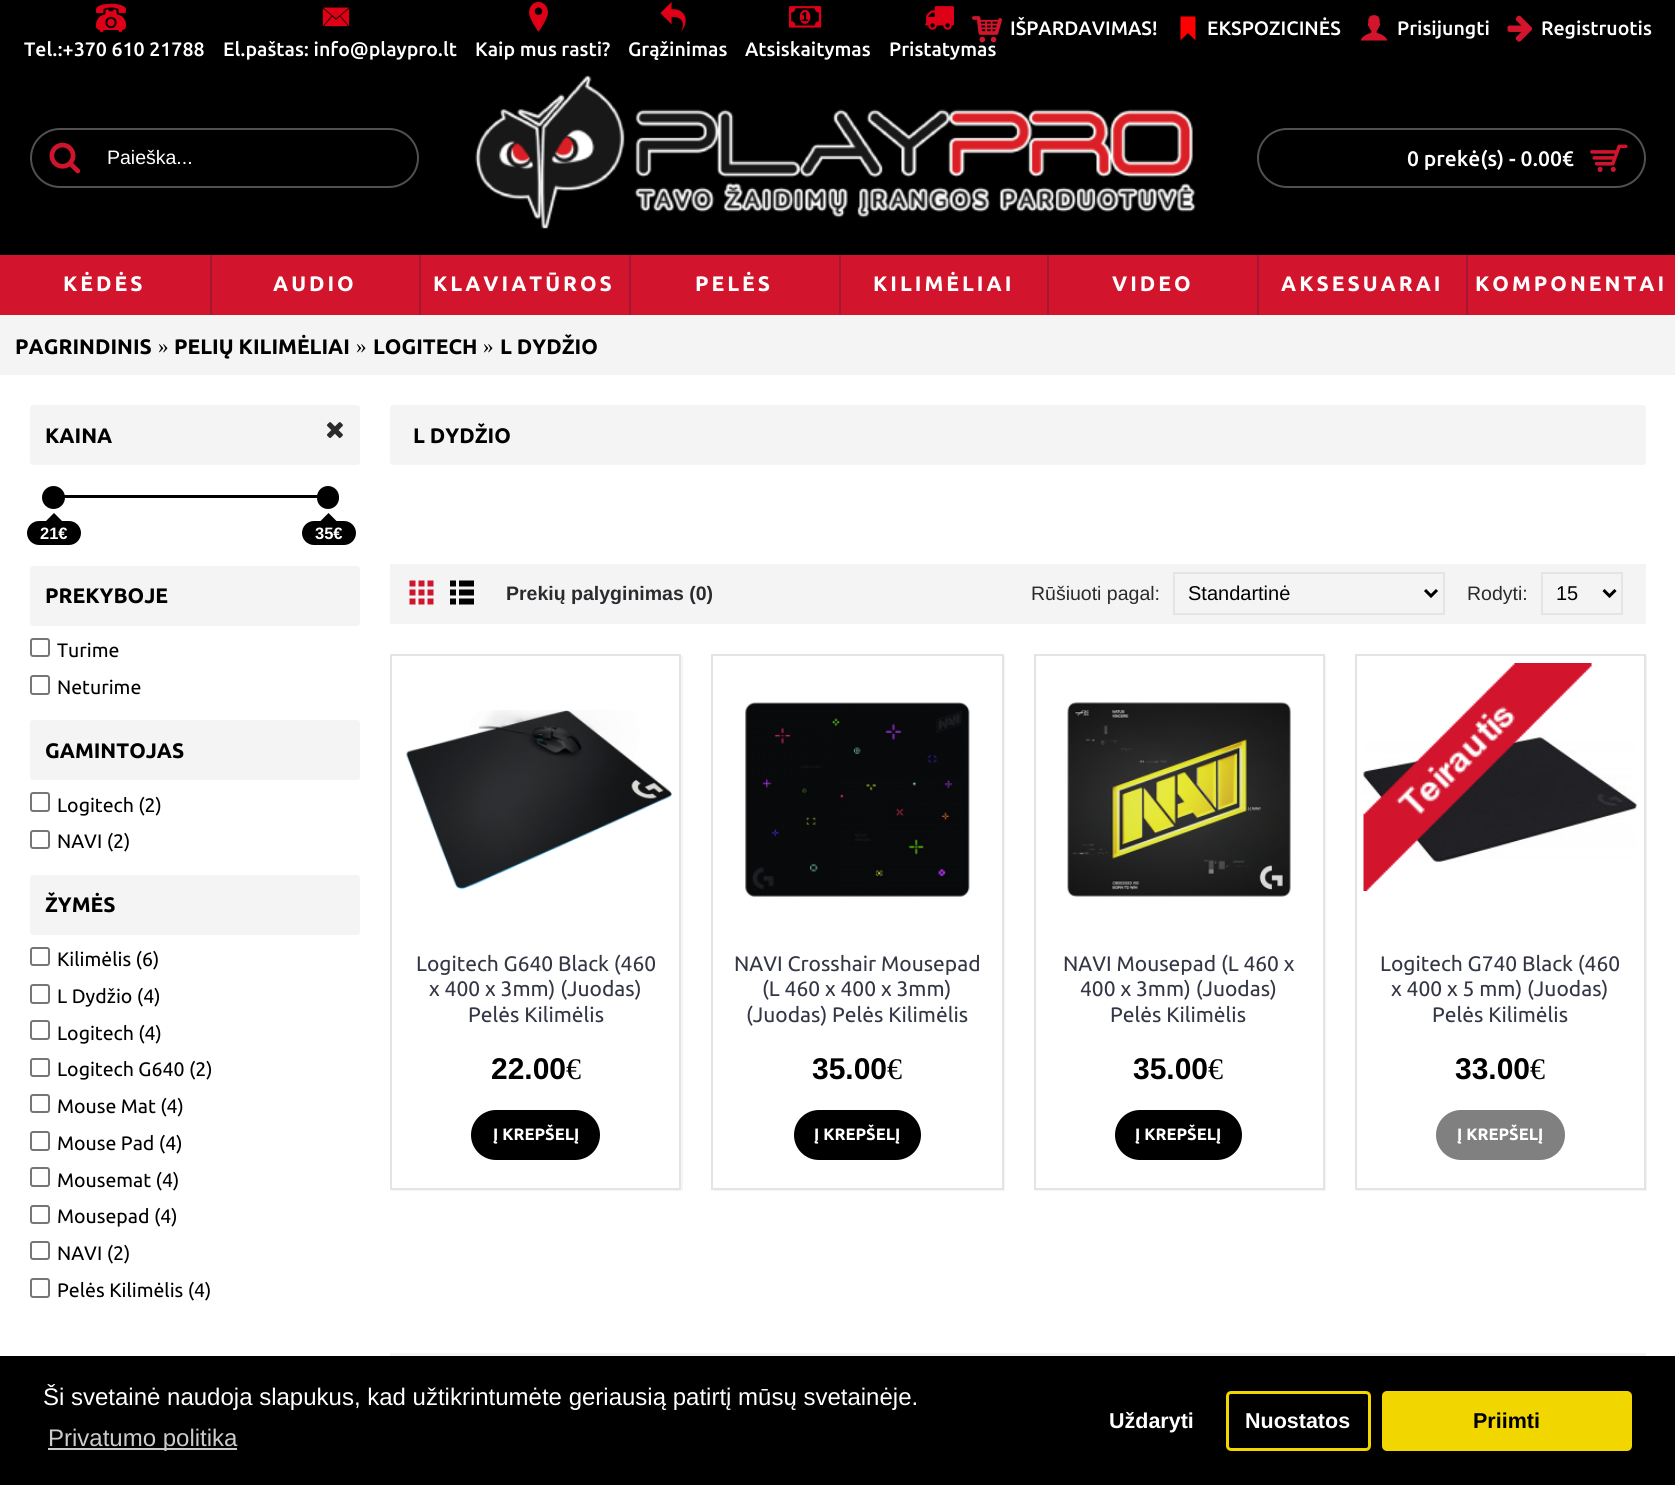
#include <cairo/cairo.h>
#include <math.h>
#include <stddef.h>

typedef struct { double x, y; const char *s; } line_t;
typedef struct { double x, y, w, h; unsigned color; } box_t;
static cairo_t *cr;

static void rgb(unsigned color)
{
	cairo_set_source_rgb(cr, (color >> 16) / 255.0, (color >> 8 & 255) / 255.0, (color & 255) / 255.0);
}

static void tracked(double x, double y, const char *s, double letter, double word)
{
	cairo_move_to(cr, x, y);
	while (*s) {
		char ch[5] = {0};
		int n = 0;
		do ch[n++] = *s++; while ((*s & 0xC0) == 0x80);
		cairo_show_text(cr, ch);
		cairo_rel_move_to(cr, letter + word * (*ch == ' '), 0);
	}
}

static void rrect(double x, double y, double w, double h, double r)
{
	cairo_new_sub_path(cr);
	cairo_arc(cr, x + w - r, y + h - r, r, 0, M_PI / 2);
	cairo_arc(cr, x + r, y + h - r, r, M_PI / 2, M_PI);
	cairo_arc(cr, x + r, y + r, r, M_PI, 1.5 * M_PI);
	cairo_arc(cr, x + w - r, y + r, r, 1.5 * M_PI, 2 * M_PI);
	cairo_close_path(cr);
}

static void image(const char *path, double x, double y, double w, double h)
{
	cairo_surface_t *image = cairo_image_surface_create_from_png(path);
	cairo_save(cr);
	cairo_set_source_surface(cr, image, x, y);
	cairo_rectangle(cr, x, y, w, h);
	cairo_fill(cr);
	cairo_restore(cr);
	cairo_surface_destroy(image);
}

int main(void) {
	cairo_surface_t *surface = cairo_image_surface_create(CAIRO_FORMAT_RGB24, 1675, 1485);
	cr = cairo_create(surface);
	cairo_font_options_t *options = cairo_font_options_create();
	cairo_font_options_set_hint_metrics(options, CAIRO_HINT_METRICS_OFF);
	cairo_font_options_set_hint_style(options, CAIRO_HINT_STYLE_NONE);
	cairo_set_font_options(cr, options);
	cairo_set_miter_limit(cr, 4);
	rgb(0xffffff);
	cairo_paint(cr);
	rgb(0x000000);
	cairo_rectangle(cr, 0, 0, 1675, 255);
	cairo_fill(cr);
	rgb(0xff0000);
	cairo_new_path(cr);
	cairo_move_to(cr, 1180.5, 16.5);
	cairo_line_to(cr, 1180.5, 40.5);
	cairo_line_to(cr, 1188, 33);
	cairo_line_to(cr, 1195.5, 40.5);
	cairo_line_to(cr, 1195.5, 16.5);
	cairo_close_path(cr);
	cairo_fill(cr);
	image("img/2.png", 1360, 15, 28, 26);
	image("img/3.png", 1507, 15, 26, 27);
	image("img/4.png", 96, 3, 30, 29);
	image("img/5.png", 322, 7, 28, 20);
	image("img/6.png", 529, 1, 19, 31);
	image("img/7.png", 660, 2, 26, 30);
	image("img/8.png", 789, 6, 33, 22);
	image("img/9.png", 925, 6, 29, 24);
	rrect(31, 129, 387, 58, 29);
	rgb(0x505050);
	cairo_stroke(cr);
	image("img/10.png", 49, 142, 32, 32);
	image("img/11.png", 475, 75, 721, 154);
	rrect(1258, 129, 387, 58, 29);
	cairo_stroke(cr);
	image("img/12.png", 1590, 144, 38, 28);
	{
		static const box_t items[] = {
			{0, 255, 210, 60, 0xd2142d},
			{212, 255, 207, 60, 0xd2142d},
			{210, 255, 2, 60, 0xa41733},
			{421, 255, 208, 60, 0xd2142d},
			{419, 255, 2, 60, 0xa41733},
			{631, 255, 208, 60, 0xd2142d},
			{629, 255, 2, 60, 0xa41733},
			{841, 255, 206, 60, 0xd2142d},
			{839, 255, 2, 60, 0xa41733},
			{1049, 255, 208, 60, 0xd2142d},
			{1047, 255, 2, 60, 0xa41733},
			{1259, 255, 207, 60, 0xd2142d},
			{1257, 255, 2, 60, 0xa41733},
			{1468, 255, 207, 60, 0xd2142d},
			{1466, 255, 2, 60, 0xa41733},
			{0, 315, 1675, 60, 0xf4f4f4},
		};
		for (size_t i = 0; i < sizeof items / sizeof *items; i++) {
			rgb(items[i].color);
			cairo_rectangle(cr, items[i].x, items[i].y, items[i].w, items[i].h);
			cairo_fill(cr);
		}
	}
	rrect(30, 405, 330, 60, 3);
	cairo_fill(cr);
	image("img/13.png", 327, 422, 16, 16);
	rgb(0x000000);
	cairo_rectangle(cr, 56, 495, 262, 3);
	cairo_fill(cr);
	cairo_arc(cr, 53.5, 497.5, 11.5, 0, 2 * M_PI);
	cairo_fill(cr);
	rrect(27, 521, 54, 24, 12);
	cairo_fill(cr);
	cairo_new_path(cr);
	cairo_move_to(cr, 64.5, 523.5);
	cairo_line_to(cr, 43.5, 523.5);
	cairo_line_to(cr, 54, 513);
	cairo_close_path(cr);
	cairo_fill(cr);
	rrect(317, 486, 22, 23, 11);
	cairo_fill(cr);
	rrect(302, 521, 54, 24, 12);
	cairo_fill(cr);
	cairo_new_path(cr);
	cairo_move_to(cr, 339, 523.5);
	cairo_line_to(cr, 318, 523.5);
	cairo_line_to(cr, 328.5, 513);
	cairo_close_path(cr);
	cairo_fill(cr);
	rgb(0xf4f4f4);
	rrect(30, 566, 330, 60, 3);
	cairo_fill(cr);
	rrect(31, 639, 18, 17, 2);
	rgb(0x767676);
	cairo_stroke(cr);
	rrect(31, 676, 18, 18, 2);
	cairo_stroke(cr);
	rgb(0xf4f4f4);
	rrect(30, 720, 330, 60, 3);
	cairo_fill(cr);
	rrect(31, 793, 18, 18, 2);
	rgb(0x767676);
	cairo_stroke(cr);
	rrect(31, 831, 18, 17, 2);
	cairo_stroke(cr);
	rgb(0xf4f4f4);
	rrect(30, 875, 330, 60, 3);
	cairo_fill(cr);
	rrect(31, 948, 18, 17, 2);
	rgb(0x767676);
	cairo_stroke(cr);
	rrect(31, 985, 18, 18, 2);
	cairo_stroke(cr);
	rrect(31, 1021, 18, 18, 2);
	cairo_stroke(cr);
	rrect(31, 1059, 18, 17, 2);
	cairo_stroke(cr);
	rrect(31, 1095, 18, 17, 2);
	cairo_stroke(cr);
	rrect(31, 1132, 18, 18, 2);
	cairo_stroke(cr);
	rrect(31, 1168, 18, 18, 2);
	cairo_stroke(cr);
	rrect(31, 1206, 18, 17, 2);
	cairo_stroke(cr);
	rrect(31, 1242, 18, 17, 2);
	cairo_stroke(cr);
	rrect(31, 1279, 18, 18, 2);
	cairo_stroke(cr);
	rgb(0xf4f4f4);
	rrect(390, 405, 1256, 60, 3);
	cairo_fill(cr);
	cairo_rectangle(cr, 390, 564, 1256, 60);
	cairo_fill(cr);
	image("img/14.png", 409, 580, 25, 25);
	image("img/15.png", 450, 580, 24, 25);
	cairo_rectangle(cr, 1174, 573, 270, 41);
	rgb(0xe4e4e4);
	cairo_stroke(cr);
	cairo_new_path(cr);
	cairo_move_to(cr, 1425, 590);
	cairo_line_to(cr, 1431, 596);
	cairo_line_to(cr, 1437, 590);
	rgb(0x000000);
	cairo_set_line_width(cr, 3);
	cairo_stroke(cr);
	cairo_rectangle(cr, 1542, 573, 80, 41);
	rgb(0xe4e4e4);
	cairo_set_line_width(cr, 2);
	cairo_stroke(cr);
	cairo_new_path(cr);
	cairo_move_to(cr, 1603.5, 590);
	cairo_line_to(cr, 1609.5, 596);
	cairo_line_to(cr, 1615.5, 590);
	rgb(0x000000);
	cairo_set_line_width(cr, 3);
	cairo_stroke(cr);
	rgb(0xf5f5f5);
	cairo_new_path(cr);
	cairo_move_to(cr, 392, 1190);
	cairo_line_to(cr, 392, 1191);
	cairo_line_to(cr, 683, 1191);
	cairo_line_to(cr, 683, 656);
	cairo_line_to(cr, 681, 656);
	cairo_line_to(cr, 681, 1190);
	cairo_close_path(cr);
	cairo_fill(cr);
	cairo_rectangle(cr, 391, 655, 289, 534);
	rgb(0xe4e4e4);
	cairo_set_line_width(cr, 2);
	cairo_stroke(cr);
	image("img/16.png", 406, 710, 266, 180);
	rgb(0x000000);
	rrect(471, 1110, 129, 50, 25);
	cairo_fill(cr);
	rgb(0xf5f5f5);
	cairo_new_path(cr);
	cairo_move_to(cr, 713, 1190);
	cairo_line_to(cr, 713, 1191);
	cairo_line_to(cr, 1005, 1191);
	cairo_line_to(cr, 1005, 656);
	cairo_line_to(cr, 1004, 656);
	cairo_line_to(cr, 1004, 1190);
	cairo_close_path(cr);
	cairo_fill(cr);
	cairo_rectangle(cr, 712, 655, 291, 534);
	rgb(0xe4e4e4);
	cairo_stroke(cr);
	image("img/17.png", 745, 702, 225, 195);
	rgb(0x000000);
	rrect(794, 1110, 127, 50, 25);
	cairo_fill(cr);
	rgb(0xf5f5f5);
	cairo_new_path(cr);
	cairo_move_to(cr, 1035, 1190);
	cairo_line_to(cr, 1035, 1191);
	cairo_line_to(cr, 1326, 1191);
	cairo_line_to(cr, 1326, 656);
	cairo_line_to(cr, 1324, 656);
	cairo_line_to(cr, 1324, 1190);
	cairo_close_path(cr);
	cairo_fill(cr);
	cairo_rectangle(cr, 1035, 655, 289, 534);
	rgb(0xe4e4e4);
	cairo_stroke(cr);
	image("img/18.png", 1067, 702, 224, 195);
	rgb(0x000000);
	rrect(1115, 1110, 127, 50, 25);
	cairo_fill(cr);
	rgb(0xf5f5f5);
	cairo_new_path(cr);
	cairo_move_to(cr, 1356, 1190);
	cairo_line_to(cr, 1356, 1191);
	cairo_line_to(cr, 1647, 1191);
	cairo_line_to(cr, 1647, 656);
	cairo_line_to(cr, 1646, 656);
	cairo_line_to(cr, 1646, 1190);
	cairo_close_path(cr);
	cairo_fill(cr);
	cairo_rectangle(cr, 1356, 655, 289, 534);
	rgb(0xe4e4e4);
	cairo_stroke(cr);
	image("img/20.png", 1363, 733, 274, 130);
	image("img/19.png", 1363, 663, 229, 228);
	rgb(0x808080);
	rrect(1436, 1110, 129, 50, 25);
	cairo_fill(cr);
	{
		static const box_t items[] = {
			{390, 1353, 1256, 3, 0xf4f4f4},
			{0, 1356, 1675, 129, 0x000000},
			{48, 1448, 189, 2, 0xcccccc},
		};
		for (size_t i = 0; i < sizeof items / sizeof *items; i++) {
			rgb(items[i].color);
			cairo_rectangle(cr, items[i].x, items[i].y, items[i].w, items[i].h);
			cairo_fill(cr);
		}
	}
	rrect(1227.5, 1392.5, 142, 57, 3.5);
	rgb(0xf1d600);
	cairo_set_line_width(cr, 3);
	cairo_stroke(cr);
	rrect(1382, 1391, 250, 60, 5);
	cairo_fill(cr);
	cairo_select_font_face(cr, "Ubuntu Medium", CAIRO_FONT_SLANT_NORMAL, CAIRO_FONT_WEIGHT_NORMAL);
	cairo_set_font_size(cr, 19.5);
	rgb(0xffffff);
	{
		static const line_t items[] = {
			{1010, 35, "IŠPARDAVIMAS!"},
			{1207, 35, "EKSPOZICINĖS"},
			{1397, 35, "Prisijungti"},
			{1541, 35, "Registruotis"},
			{24, 56, "Tel.:+370 610 21788"},
			{223, 56, "El.paštas: info@playpro.lt"},
			{475, 56, "Kaip mus rasti?"},
			{628, 56, "Grąžinimas"},
			{745, 56, "Atsiskaitymas"},
			{889, 56, "Pristatymas"},
		};
		for (size_t i = 0; i < sizeof items / sizeof *items; i++) {
			cairo_move_to(cr, items[i].x, items[i].y);
			cairo_show_text(cr, items[i].s);
		}
	}
	image("img/1.png", 972, 16, 30, 27);
	cairo_select_font_face(cr, "Liberation Sans", CAIRO_FONT_SLANT_NORMAL, CAIRO_FONT_WEIGHT_NORMAL);
	cairo_move_to(cr, 107, 164);
	cairo_show_text(cr, "Paieška...");
	cairo_select_font_face(cr, "Ubuntu Medium", CAIRO_FONT_SLANT_NORMAL, CAIRO_FONT_WEIGHT_NORMAL);
	cairo_set_font_size(cr, 21);
	cairo_move_to(cr, 1407, 166);
	cairo_show_text(cr, "0 prekė(s) - 0.00€");
	cairo_select_font_face(cr, "Ubuntu", CAIRO_FONT_SLANT_NORMAL, CAIRO_FONT_WEIGHT_BOLD);
	{
		static const line_t items[] = {
			{63, 291, "KĖDĖS"},
			{273, 291, "AUDIO"},
			{433, 291, "KLAVIATŪROS"},
			{695, 291, "PELĖS"},
			{873, 291, "KILIMĖLIAI"},
			{1112, 291, "VIDEO"},
			{1281, 291, "AKSESUARAI"},
			{1475, 291, "KOMPONENTAI"},
		};
		for (size_t i = 0; i < sizeof items / sizeof *items; i++) {
			tracked(items[i].x, items[i].y, items[i].s, 3, 0);
		}
	}
	rgb(0x000000);
	cairo_move_to(cr, 15, 354);
	cairo_show_text(cr, "PAGRINDINIS");
	cairo_select_font_face(cr, "Liberation Serif", CAIRO_FONT_SLANT_NORMAL, CAIRO_FONT_WEIGHT_NORMAL);
	cairo_move_to(cr, 158, 353);
	cairo_show_text(cr, "»");
	cairo_select_font_face(cr, "Ubuntu", CAIRO_FONT_SLANT_NORMAL, CAIRO_FONT_WEIGHT_BOLD);
	cairo_move_to(cr, 174, 354);
	cairo_show_text(cr, "PELIŲ KILIMĖLIAI");
	cairo_select_font_face(cr, "Liberation Serif", CAIRO_FONT_SLANT_NORMAL, CAIRO_FONT_WEIGHT_NORMAL);
	cairo_move_to(cr, 356, 353);
	cairo_show_text(cr, "»");
	cairo_select_font_face(cr, "Ubuntu", CAIRO_FONT_SLANT_NORMAL, CAIRO_FONT_WEIGHT_BOLD);
	cairo_move_to(cr, 373, 354);
	cairo_show_text(cr, "LOGITECH");
	cairo_select_font_face(cr, "Liberation Serif", CAIRO_FONT_SLANT_NORMAL, CAIRO_FONT_WEIGHT_NORMAL);
	cairo_move_to(cr, 483, 353);
	cairo_show_text(cr, "»");
	cairo_select_font_face(cr, "Ubuntu", CAIRO_FONT_SLANT_NORMAL, CAIRO_FONT_WEIGHT_BOLD);
	cairo_move_to(cr, 500, 354);
	cairo_show_text(cr, "L DYDŽIO");
	cairo_move_to(cr, 45, 443);
	cairo_show_text(cr, "KAINA");
	cairo_select_font_face(cr, "Liberation Sans", CAIRO_FONT_SLANT_NORMAL, CAIRO_FONT_WEIGHT_BOLD);
	cairo_set_font_size(cr, 16.5);
	rgb(0xffffff);
	cairo_move_to(cr, 40, 539);
	cairo_show_text(cr, "21€");
	cairo_move_to(cr, 315, 539);
	cairo_show_text(cr, "35€");
	cairo_select_font_face(cr, "Ubuntu", CAIRO_FONT_SLANT_NORMAL, CAIRO_FONT_WEIGHT_BOLD);
	cairo_set_font_size(cr, 21);
	rgb(0x000000);
	cairo_move_to(cr, 45, 603);
	cairo_show_text(cr, "PREKYBOJE");
	cairo_select_font_face(cr, "Ubuntu", CAIRO_FONT_SLANT_NORMAL, CAIRO_FONT_WEIGHT_NORMAL);
	cairo_set_font_size(cr, 19.5);
	cairo_move_to(cr, 57, 657);
	cairo_show_text(cr, "Turime");
	cairo_move_to(cr, 57, 694);
	cairo_show_text(cr, "Neturime");
	cairo_select_font_face(cr, "Ubuntu", CAIRO_FONT_SLANT_NORMAL, CAIRO_FONT_WEIGHT_BOLD);
	cairo_set_font_size(cr, 21);
	cairo_move_to(cr, 45, 758);
	cairo_show_text(cr, "GAMINTOJAS");
	cairo_select_font_face(cr, "Ubuntu", CAIRO_FONT_SLANT_NORMAL, CAIRO_FONT_WEIGHT_NORMAL);
	cairo_set_font_size(cr, 19.5);
	cairo_move_to(cr, 57, 812);
	cairo_show_text(cr, "Logitech (2)");
	cairo_move_to(cr, 57, 848);
	cairo_show_text(cr, "NAVI (2)");
	cairo_select_font_face(cr, "Ubuntu", CAIRO_FONT_SLANT_NORMAL, CAIRO_FONT_WEIGHT_BOLD);
	cairo_set_font_size(cr, 21);
	cairo_move_to(cr, 45, 912);
	cairo_show_text(cr, "ŽYMĖS");
	cairo_select_font_face(cr, "Ubuntu", CAIRO_FONT_SLANT_NORMAL, CAIRO_FONT_WEIGHT_NORMAL);
	cairo_set_font_size(cr, 19.5);
	{
		static const line_t items[] = {
			{57, 966, "Kilimėlis (6)"},
			{57, 1003, "L Dydžio (4)"},
			{57, 1040, "Logitech (4)"},
			{57, 1076, "Logitech G640 (2)"},
			{57, 1113, "Mouse Mat (4)"},
			{57, 1150, "Mouse Pad (4)"},
			{57, 1187, "Mousemat (4)"},
			{57, 1223, "Mousepad (4)"},
			{57, 1260, "NAVI (2)"},
			{57, 1297, "Pelės Kilimėlis (4)"},
		};
		for (size_t i = 0; i < sizeof items / sizeof *items; i++) {
			cairo_move_to(cr, items[i].x, items[i].y);
			cairo_show_text(cr, items[i].s);
		}
	}
	cairo_select_font_face(cr, "Ubuntu", CAIRO_FONT_SLANT_NORMAL, CAIRO_FONT_WEIGHT_BOLD);
	cairo_set_font_size(cr, 21);
	cairo_move_to(cr, 413, 443);
	cairo_show_text(cr, "L DYDŽIO");
	cairo_select_font_face(cr, "Liberation Sans", CAIRO_FONT_SLANT_NORMAL, CAIRO_FONT_WEIGHT_BOLD);
	cairo_set_font_size(cr, 19.5);
	rgb(0x2a2b2e);
	cairo_move_to(cr, 506, 600);
	cairo_show_text(cr, "Prekių palyginimas (0)");
	cairo_select_font_face(cr, "Liberation Sans", CAIRO_FONT_SLANT_NORMAL, CAIRO_FONT_WEIGHT_NORMAL);
	cairo_move_to(cr, 1031, 600);
	cairo_show_text(cr, "Rūšiuoti pagal:");
	cairo_set_font_size(cr, 20);
	rgb(0x000000);
	cairo_move_to(cr, 1188, 600);
	cairo_show_text(cr, "Standartinė");
	cairo_set_font_size(cr, 19.5);
	rgb(0x2a2b2e);
	cairo_move_to(cr, 1467, 600);
	cairo_show_text(cr, "Rodyti:");
	cairo_set_font_size(cr, 20);
	rgb(0x000000);
	cairo_move_to(cr, 1556, 600);
	cairo_show_text(cr, "15");
	cairo_select_font_face(cr, "Ubuntu", CAIRO_FONT_SLANT_NORMAL, CAIRO_FONT_WEIGHT_NORMAL);
	cairo_set_font_size(cr, 21);
	rgb(0x333745);
	{
		static const line_t items[] = {
			{416, 971, "Logitech G640 Black (460"},
			{429, 996, "x 400 x 3mm) (Juodas)"},
			{468, 1022, "Pelės Kilimėlis"},
		};
		for (size_t i = 0; i < sizeof items / sizeof *items; i++) {
			cairo_move_to(cr, items[i].x, items[i].y);
			cairo_show_text(cr, items[i].s);
		}
	}
	cairo_select_font_face(cr, "Ramabhadra", CAIRO_FONT_SLANT_NORMAL, CAIRO_FONT_WEIGHT_NORMAL);
	cairo_set_font_size(cr, 30);
	rgb(0x000000);
	cairo_move_to(cr, 491, 1079);
	cairo_show_text(cr, "22.00");
	cairo_select_font_face(cr, "Liberation Serif", CAIRO_FONT_SLANT_NORMAL, CAIRO_FONT_WEIGHT_NORMAL);
	cairo_move_to(cr, 566, 1079);
	cairo_show_text(cr, "€");
	cairo_select_font_face(cr, "Ubuntu", CAIRO_FONT_SLANT_NORMAL, CAIRO_FONT_WEIGHT_BOLD);
	cairo_set_font_size(cr, 16.5);
	rgb(0xffffff);
	cairo_move_to(cr, 493, 1140);
	cairo_show_text(cr, "Į KREPŠELĮ");
	cairo_select_font_face(cr, "Ubuntu", CAIRO_FONT_SLANT_NORMAL, CAIRO_FONT_WEIGHT_NORMAL);
	cairo_set_font_size(cr, 21);
	rgb(0x333745);
	{
		static const line_t items[] = {
			{734, 971, "NAVI Crosshair Mousepad"},
			{762, 996, "(L 460 x 400 x 3mm)"},
			{746, 1022, "(Juodas) Pelės Kilimėlis"},
		};
		for (size_t i = 0; i < sizeof items / sizeof *items; i++) {
			cairo_move_to(cr, items[i].x, items[i].y);
			cairo_show_text(cr, items[i].s);
		}
	}
	cairo_select_font_face(cr, "Ramabhadra", CAIRO_FONT_SLANT_NORMAL, CAIRO_FONT_WEIGHT_NORMAL);
	cairo_set_font_size(cr, 30);
	rgb(0x000000);
	cairo_move_to(cr, 812, 1079);
	cairo_show_text(cr, "35.00");
	cairo_select_font_face(cr, "Liberation Serif", CAIRO_FONT_SLANT_NORMAL, CAIRO_FONT_WEIGHT_NORMAL);
	cairo_move_to(cr, 887, 1079);
	cairo_show_text(cr, "€");
	cairo_select_font_face(cr, "Ubuntu", CAIRO_FONT_SLANT_NORMAL, CAIRO_FONT_WEIGHT_BOLD);
	cairo_set_font_size(cr, 16.5);
	rgb(0xffffff);
	cairo_move_to(cr, 814, 1140);
	cairo_show_text(cr, "Į KREPŠELĮ");
	cairo_select_font_face(cr, "Ubuntu", CAIRO_FONT_SLANT_NORMAL, CAIRO_FONT_WEIGHT_NORMAL);
	cairo_set_font_size(cr, 21);
	rgb(0x333745);
	{
		static const line_t items[] = {
			{1063, 971, "NAVI Mousepad (L 460 x"},
			{1080, 996, "400 x 3mm) (Juodas)"},
			{1110, 1022, "Pelės Kilimėlis"},
		};
		for (size_t i = 0; i < sizeof items / sizeof *items; i++) {
			cairo_move_to(cr, items[i].x, items[i].y);
			cairo_show_text(cr, items[i].s);
		}
	}
	cairo_select_font_face(cr, "Ramabhadra", CAIRO_FONT_SLANT_NORMAL, CAIRO_FONT_WEIGHT_NORMAL);
	cairo_set_font_size(cr, 30);
	rgb(0x000000);
	cairo_move_to(cr, 1133, 1079);
	cairo_show_text(cr, "35.00");
	cairo_select_font_face(cr, "Liberation Serif", CAIRO_FONT_SLANT_NORMAL, CAIRO_FONT_WEIGHT_NORMAL);
	cairo_move_to(cr, 1208, 1079);
	cairo_show_text(cr, "€");
	cairo_select_font_face(cr, "Ubuntu", CAIRO_FONT_SLANT_NORMAL, CAIRO_FONT_WEIGHT_BOLD);
	cairo_set_font_size(cr, 16.5);
	rgb(0xffffff);
	cairo_move_to(cr, 1135, 1140);
	cairo_show_text(cr, "Į KREPŠELĮ");
	cairo_select_font_face(cr, "Ubuntu", CAIRO_FONT_SLANT_NORMAL, CAIRO_FONT_WEIGHT_NORMAL);
	cairo_set_font_size(cr, 21);
	rgb(0x333745);
	{
		static const line_t items[] = {
			{1380, 971, "Logitech G740 Black (460"},
			{1391, 996, "x 400 x 5 mm) (Juodas)"},
			{1432, 1022, "Pelės Kilimėlis"},
		};
		for (size_t i = 0; i < sizeof items / sizeof *items; i++) {
			cairo_move_to(cr, items[i].x, items[i].y);
			cairo_show_text(cr, items[i].s);
		}
	}
	cairo_select_font_face(cr, "Ramabhadra", CAIRO_FONT_SLANT_NORMAL, CAIRO_FONT_WEIGHT_NORMAL);
	cairo_set_font_size(cr, 30);
	rgb(0x000000);
	cairo_move_to(cr, 1455, 1079);
	cairo_show_text(cr, "33.00");
	cairo_select_font_face(cr, "Liberation Serif", CAIRO_FONT_SLANT_NORMAL, CAIRO_FONT_WEIGHT_NORMAL);
	cairo_move_to(cr, 1530, 1079);
	cairo_show_text(cr, "€");
	cairo_select_font_face(cr, "Ubuntu", CAIRO_FONT_SLANT_NORMAL, CAIRO_FONT_WEIGHT_BOLD);
	cairo_set_font_size(cr, 16.5);
	rgb(0xffffff);
	cairo_move_to(cr, 1457, 1140);
	cairo_show_text(cr, "Į KREPŠELĮ");
	cairo_select_font_face(cr, "Liberation Sans", CAIRO_FONT_SLANT_NORMAL, CAIRO_FONT_WEIGHT_NORMAL);
	cairo_set_font_size(cr, 24);
	cairo_move_to(cr, 43, 1405);
	cairo_show_text(cr, "Ši svetainė naudoja slapukus, kad užtikrintumėte geriausią patirtį mūsų svetainėje.");
	rgb(0xcccccc);
	cairo_move_to(cr, 48, 1446);
	cairo_show_text(cr, "Privatumo politika");
	cairo_select_font_face(cr, "Liberation Sans", CAIRO_FONT_SLANT_NORMAL, CAIRO_FONT_WEIGHT_BOLD);
	cairo_set_font_size(cr, 21.5);
	rgb(0xffffff);
	cairo_move_to(cr, 1109, 1428);
	cairo_show_text(cr, "Uždaryti");
	cairo_move_to(cr, 1245, 1428);
	cairo_show_text(cr, "Nuostatos");
	rgb(0x000000);
	cairo_move_to(cr, 1473, 1428);
	cairo_show_text(cr, "Priimti");
	cairo_surface_write_to_png(surface, "page.png");
	cairo_font_options_destroy(options);
	cairo_destroy(cr);
	cairo_surface_destroy(surface);
	return 0;
}
